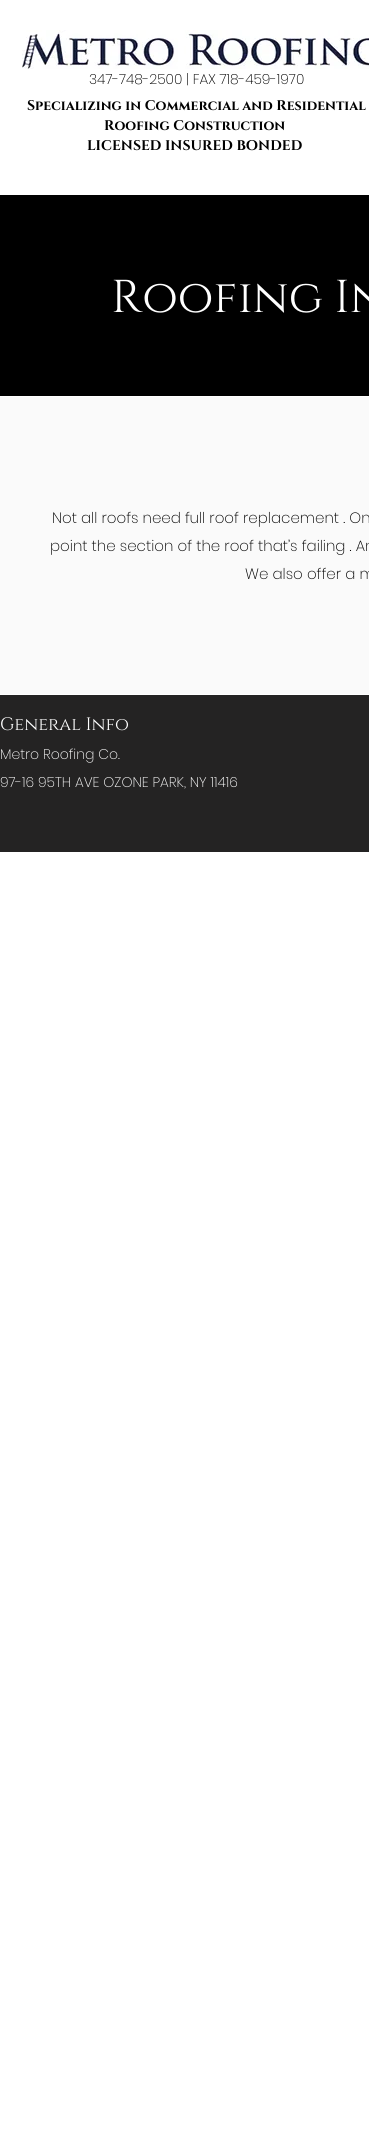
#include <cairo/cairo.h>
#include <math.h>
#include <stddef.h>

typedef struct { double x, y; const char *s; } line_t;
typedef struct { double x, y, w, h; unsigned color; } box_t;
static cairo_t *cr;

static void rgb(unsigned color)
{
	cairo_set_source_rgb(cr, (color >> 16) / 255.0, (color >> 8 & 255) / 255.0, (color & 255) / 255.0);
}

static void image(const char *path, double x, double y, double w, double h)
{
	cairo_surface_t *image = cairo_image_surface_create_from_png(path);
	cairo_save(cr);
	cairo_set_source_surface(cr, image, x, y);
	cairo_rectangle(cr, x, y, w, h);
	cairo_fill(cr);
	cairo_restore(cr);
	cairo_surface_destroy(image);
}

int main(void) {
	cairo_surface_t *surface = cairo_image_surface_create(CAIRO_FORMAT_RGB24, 369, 2137);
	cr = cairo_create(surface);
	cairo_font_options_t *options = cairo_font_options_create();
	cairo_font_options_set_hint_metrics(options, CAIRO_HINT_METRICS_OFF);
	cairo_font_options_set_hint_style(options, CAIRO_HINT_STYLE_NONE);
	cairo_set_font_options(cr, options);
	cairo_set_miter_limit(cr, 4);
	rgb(0xffffff);
	cairo_paint(cr);
	image("img/1.png", 22, 30, 347, 39);
	{
		static const box_t items[] = {
			{0, 195, 369, 201, 0x000000},
			{0, 397, 369, 297, 0xfafafa},
			{0, 695, 369, 157, 0x242323},
		};
		for (size_t i = 0; i < sizeof items / sizeof *items; i++) {
			rgb(items[i].color);
			cairo_rectangle(cr, items[i].x, items[i].y, items[i].w, items[i].h);
			cairo_fill(cr);
		}
	}
	cairo_select_font_face(cr, "Poppins ExtraLight", CAIRO_FONT_SLANT_NORMAL, CAIRO_FONT_WEIGHT_NORMAL);
	cairo_set_font_size(cr, 14);
	rgb(0x000000);
	cairo_move_to(cr, 89, 84);
	cairo_show_text(cr, "347-748-2500 | FAX 718-459-1970");
	cairo_select_font_face(cr, "Cinzel", CAIRO_FONT_SLANT_NORMAL, CAIRO_FONT_WEIGHT_BOLD);
	{
		static const line_t items[] = {
			{27, 110, "Specializing in Commercial and Residential"},
			{104, 130, "Roofing Construction"},
			{87, 150, "LICENSED INSURED BONDED"},
		};
		for (size_t i = 0; i < sizeof items / sizeof *items; i++) {
			cairo_move_to(cr, items[i].x, items[i].y);
			cairo_show_text(cr, items[i].s);
		}
	}
	cairo_select_font_face(cr, "Cinzel", CAIRO_FONT_SLANT_NORMAL, CAIRO_FONT_WEIGHT_NORMAL);
	cairo_set_font_size(cr, 46);
	rgb(0xffffff);
	cairo_move_to(cr, 111, 312);
	cairo_show_text(cr, "Roofing In");
	cairo_select_font_face(cr, "Poppins ExtraLight", CAIRO_FONT_SLANT_NORMAL, CAIRO_FONT_WEIGHT_NORMAL);
	cairo_set_font_size(cr, 15);
	rgb(0x000000);
	{
		static const line_t items[] = {
			{52, 523, "Not all roofs need full roof replacement . On"},
			{50, 551, "point the section of the roof that’s failing . An"},
			{245, 579, "We also offer a m"},
		};
		for (size_t i = 0; i < sizeof items / sizeof *items; i++) {
			cairo_move_to(cr, items[i].x, items[i].y);
			cairo_show_text(cr, items[i].s);
		}
	}
	cairo_select_font_face(cr, "Cinzel", CAIRO_FONT_SLANT_NORMAL, CAIRO_FONT_WEIGHT_NORMAL);
	cairo_set_font_size(cr, 18);
	rgb(0xffffff);
	cairo_move_to(cr, 0, 730);
	cairo_show_text(cr, "General Info");
	cairo_select_font_face(cr, "Poppins ExtraLight", CAIRO_FONT_SLANT_NORMAL, CAIRO_FONT_WEIGHT_NORMAL);
	cairo_set_font_size(cr, 14);
	cairo_move_to(cr, 0, 759);
	cairo_show_text(cr, "Metro Roofing Co.");
	cairo_move_to(cr, 0, 787);
	cairo_show_text(cr, "97-16 95TH AVE OZONE PARK, NY 11416");
	cairo_surface_write_to_png(surface, "page.png");
	cairo_font_options_destroy(options);
	cairo_destroy(cr);
	cairo_surface_destroy(surface);
	return 0;
}
